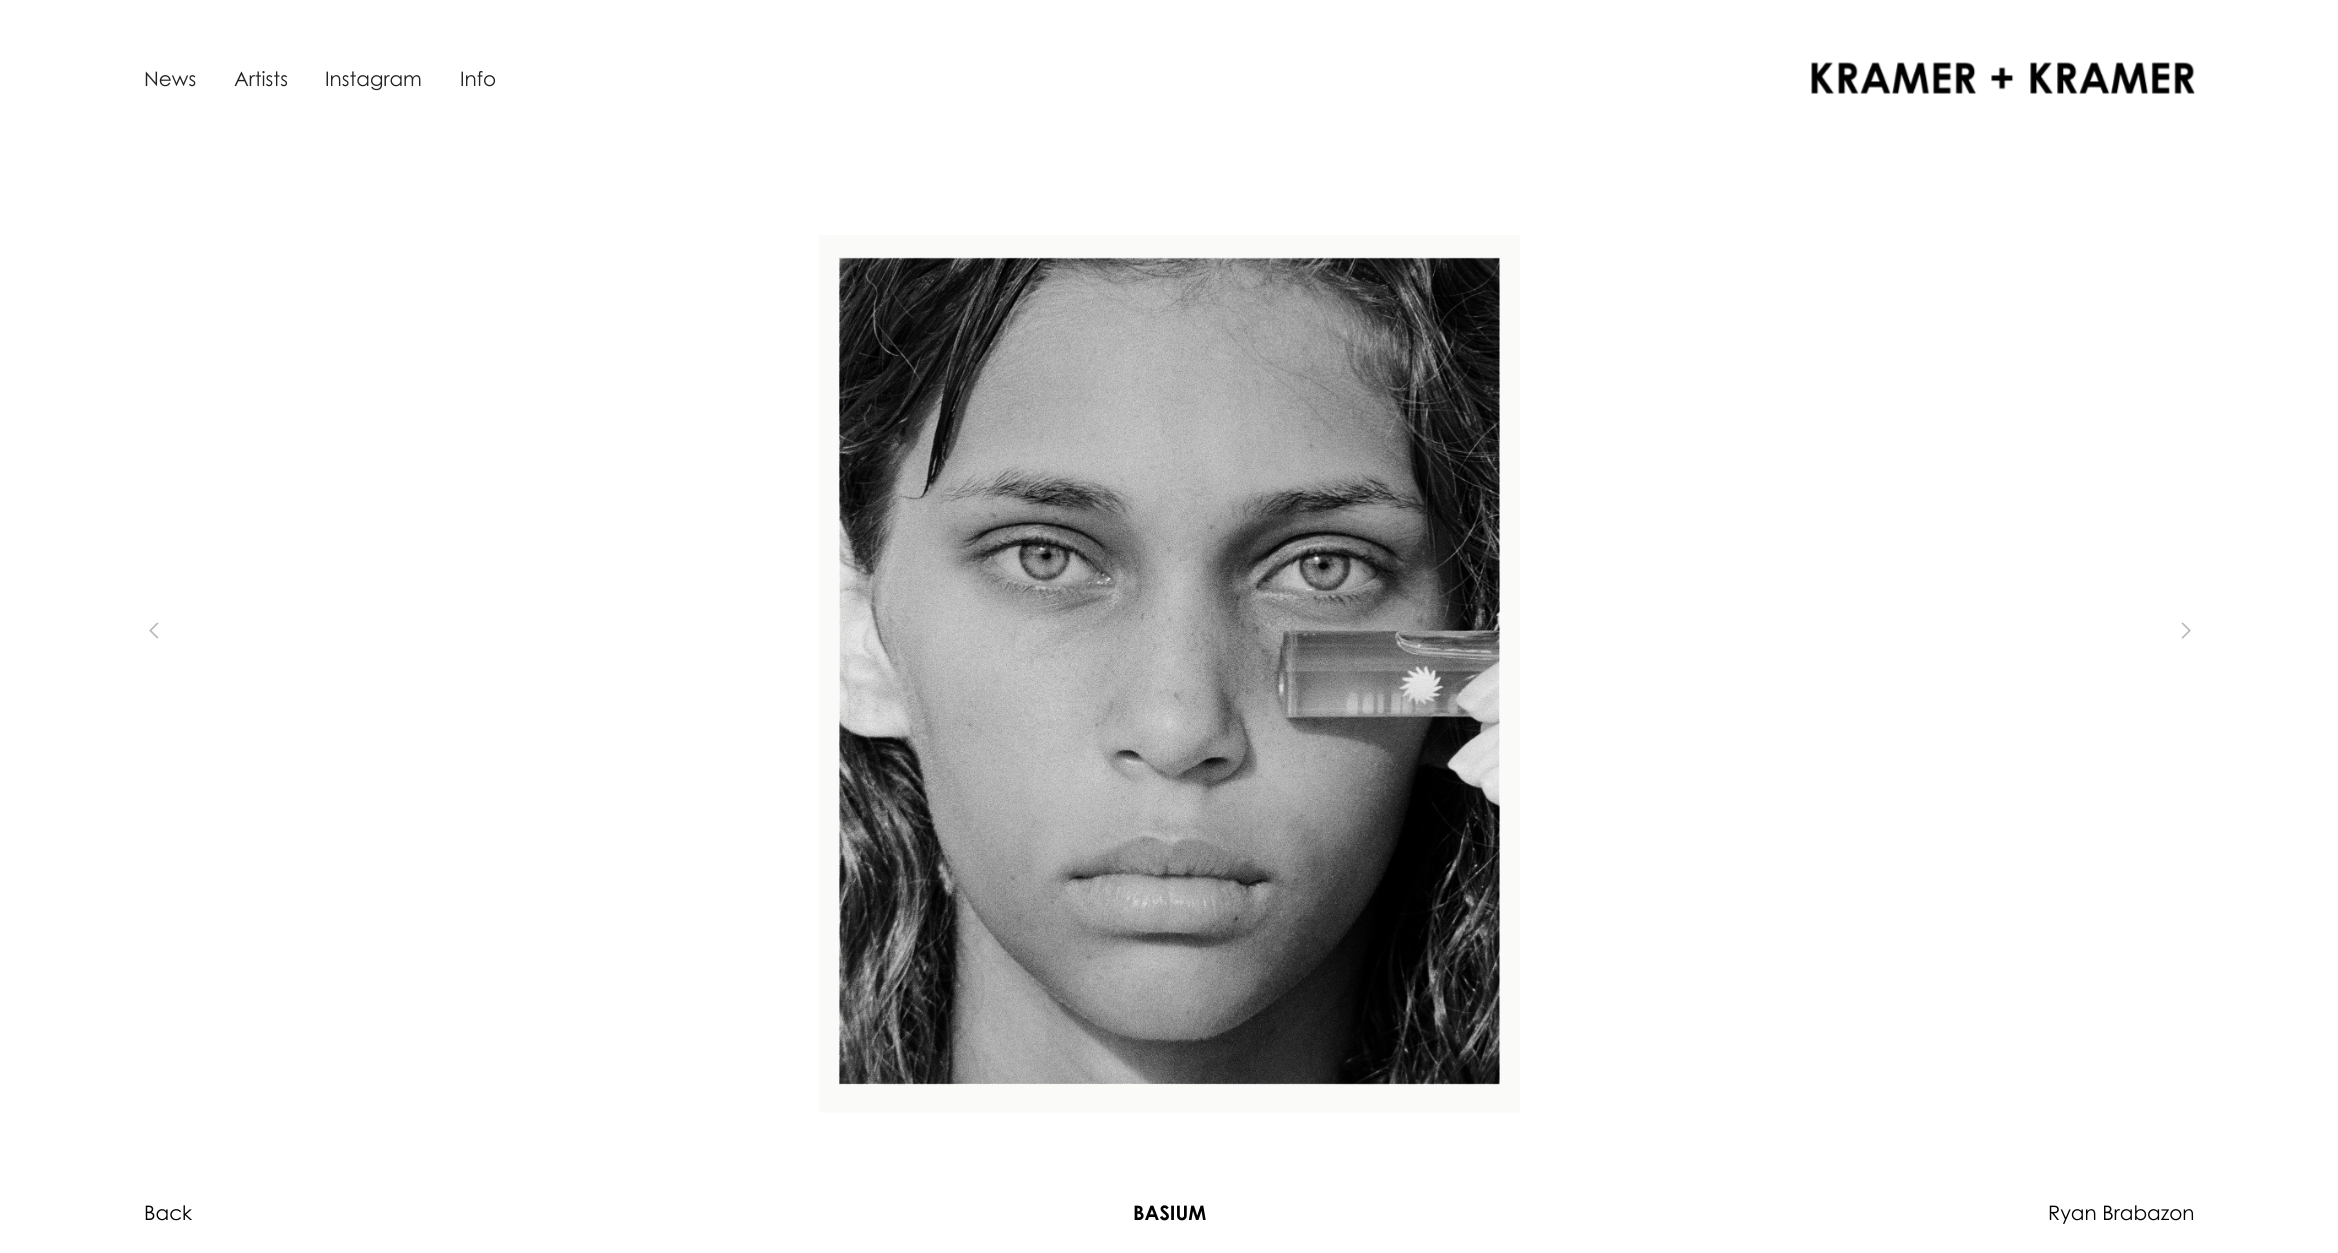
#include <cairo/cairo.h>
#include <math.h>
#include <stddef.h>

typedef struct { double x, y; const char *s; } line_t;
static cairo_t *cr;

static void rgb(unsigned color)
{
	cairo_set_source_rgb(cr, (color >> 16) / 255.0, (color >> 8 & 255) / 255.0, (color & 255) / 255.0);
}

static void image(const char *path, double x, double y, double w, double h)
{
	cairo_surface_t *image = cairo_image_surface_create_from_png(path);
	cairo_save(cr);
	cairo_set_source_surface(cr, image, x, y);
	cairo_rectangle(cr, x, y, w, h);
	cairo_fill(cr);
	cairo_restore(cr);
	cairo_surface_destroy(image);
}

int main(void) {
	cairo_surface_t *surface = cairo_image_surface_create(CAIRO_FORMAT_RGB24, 2338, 1253);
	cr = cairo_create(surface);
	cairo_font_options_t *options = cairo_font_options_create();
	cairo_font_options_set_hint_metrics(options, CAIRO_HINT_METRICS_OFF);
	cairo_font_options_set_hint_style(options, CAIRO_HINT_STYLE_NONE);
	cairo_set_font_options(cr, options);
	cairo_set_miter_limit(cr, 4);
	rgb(0xffffff);
	cairo_paint(cr);
	image("img/1.png", 1811, 62, 384, 32);
	image("img/2.png", 149, 622, 10, 17);
	image("img/3.png", 819, 235, 701, 878);
	image("img/4.png", 2181, 622, 10, 17);
	cairo_select_font_face(cr, "Century Gothic", CAIRO_FONT_SLANT_NORMAL, CAIRO_FONT_WEIGHT_NORMAL);
	cairo_set_font_size(cr, 20);
	rgb(0x222222);
	{
		static const line_t items[] = {
			{144, 86, "News"},
			{234, 86, "Artists"},
			{325, 86, "Instagram"},
			{460, 86, "Info"},
		};
		for (size_t i = 0; i < sizeof items / sizeof *items; i++) {
			cairo_move_to(cr, items[i].x, items[i].y);
			cairo_show_text(cr, items[i].s);
		}
	}
	rgb(0x000000);
	cairo_move_to(cr, 144, 1220);
	cairo_show_text(cr, "Back");
	cairo_select_font_face(cr, "Century Gothic", CAIRO_FONT_SLANT_NORMAL, CAIRO_FONT_WEIGHT_BOLD);
	cairo_move_to(cr, 1133, 1220);
	cairo_show_text(cr, "BASIUM");
	cairo_select_font_face(cr, "Century Gothic", CAIRO_FONT_SLANT_NORMAL, CAIRO_FONT_WEIGHT_NORMAL);
	cairo_move_to(cr, 2048, 1220);
	cairo_show_text(cr, "Ryan Brabazon");
	cairo_surface_write_to_png(surface, "page.png");
	cairo_font_options_destroy(options);
	cairo_destroy(cr);
	cairo_surface_destroy(surface);
	return 0;
}
